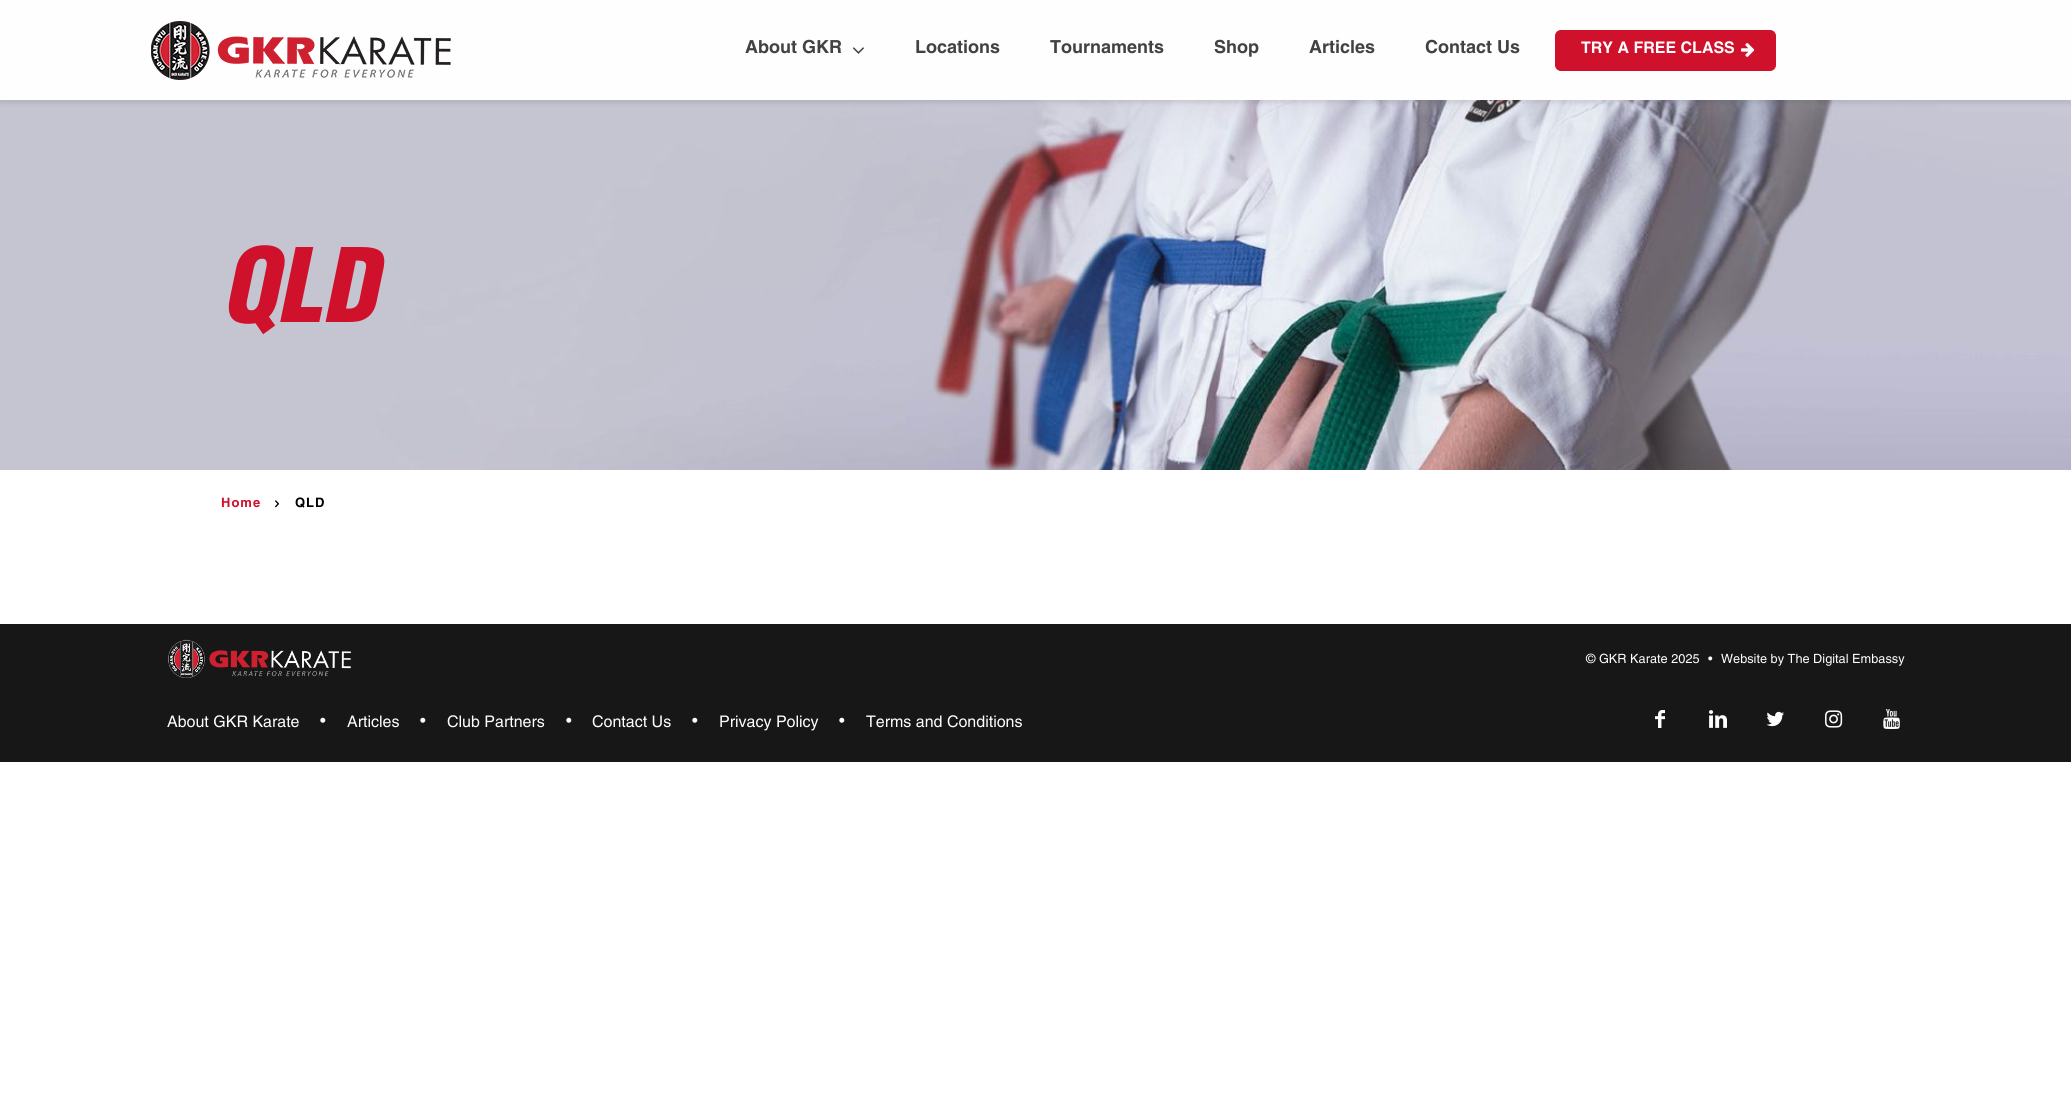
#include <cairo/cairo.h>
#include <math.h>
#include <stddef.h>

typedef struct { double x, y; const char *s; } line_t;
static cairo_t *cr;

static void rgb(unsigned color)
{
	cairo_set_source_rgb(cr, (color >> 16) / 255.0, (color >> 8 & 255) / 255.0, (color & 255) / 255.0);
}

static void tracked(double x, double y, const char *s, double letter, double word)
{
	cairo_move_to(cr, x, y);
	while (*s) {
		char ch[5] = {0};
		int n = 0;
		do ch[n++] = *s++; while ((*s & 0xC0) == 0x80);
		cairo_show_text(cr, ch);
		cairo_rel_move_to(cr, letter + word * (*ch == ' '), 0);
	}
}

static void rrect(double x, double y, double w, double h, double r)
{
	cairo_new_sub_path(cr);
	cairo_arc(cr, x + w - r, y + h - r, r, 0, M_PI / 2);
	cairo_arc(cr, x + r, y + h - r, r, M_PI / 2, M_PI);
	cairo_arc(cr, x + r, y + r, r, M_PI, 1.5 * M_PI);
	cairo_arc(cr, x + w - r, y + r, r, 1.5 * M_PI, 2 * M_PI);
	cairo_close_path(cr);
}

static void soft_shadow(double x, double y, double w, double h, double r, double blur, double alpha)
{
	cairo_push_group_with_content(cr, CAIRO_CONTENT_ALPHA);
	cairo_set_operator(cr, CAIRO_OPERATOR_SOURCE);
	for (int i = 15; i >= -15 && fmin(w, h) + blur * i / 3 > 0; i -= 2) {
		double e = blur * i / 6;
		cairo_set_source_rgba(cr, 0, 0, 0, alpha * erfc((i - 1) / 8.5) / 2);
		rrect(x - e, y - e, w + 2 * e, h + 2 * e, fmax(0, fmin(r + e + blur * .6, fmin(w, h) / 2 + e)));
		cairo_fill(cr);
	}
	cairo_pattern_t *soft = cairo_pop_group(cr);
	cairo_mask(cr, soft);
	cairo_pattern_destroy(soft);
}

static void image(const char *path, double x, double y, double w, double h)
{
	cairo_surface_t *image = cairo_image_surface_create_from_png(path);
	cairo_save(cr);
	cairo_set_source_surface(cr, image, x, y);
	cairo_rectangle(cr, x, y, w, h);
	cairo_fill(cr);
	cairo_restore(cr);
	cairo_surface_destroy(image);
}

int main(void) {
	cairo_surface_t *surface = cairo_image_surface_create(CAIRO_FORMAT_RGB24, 2071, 1105);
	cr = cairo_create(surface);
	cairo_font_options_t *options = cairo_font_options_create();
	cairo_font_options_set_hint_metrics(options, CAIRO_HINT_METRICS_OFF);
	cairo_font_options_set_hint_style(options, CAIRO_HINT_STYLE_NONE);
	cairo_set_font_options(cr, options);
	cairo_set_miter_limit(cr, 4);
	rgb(0xffffff);
	cairo_paint(cr);
	image("img/4.png", 0, 100, 2071, 370);
	rgb(0x000000);
	soft_shadow(0, 3, 2071, 100, 0, 2.5, 0.1);
	rgb(0xfefefe);
	cairo_rectangle(cr, 0, 0, 2071, 100);
	cairo_fill(cr);
	image("img/1.png", 151, 21, 300, 59);
	image("img/2.png", 852, 47, 12, 7);
	rgb(0xd0112b);
	rrect(1555.5, 30.5, 220, 40, 5.5);
	cairo_fill_preserve(cr);
	cairo_set_line_width(cr, 1);
	cairo_stroke(cr);
	image("img/3.png", 1741, 43, 14, 14);
	image("img/5.png", 275, 500, 4, 8);
	rgb(0x171717);
	cairo_rectangle(cr, 0, 624, 2071, 138);
	cairo_fill(cr);
	image("img/6.png", 168, 639, 183, 39);
	image("img/7.png", 1655, 710, 10, 18);
	image("img/8.png", 1709, 710, 18, 18);
	image("img/9.png", 1766, 711, 18, 16);
	image("img/10.png", 1825, 710, 18, 18);
	image("img/11.png", 1883, 709, 17, 20);
	cairo_select_font_face(cr, "Helvetica", CAIRO_FONT_SLANT_NORMAL, CAIRO_FONT_WEIGHT_BOLD);
	cairo_set_font_size(cr, 18);
	rgb(0x424242);
	{
		static const line_t items[] = {
			{745, 53, "About GKR"},
			{915, 53, "Locations"},
			{1050, 53, "Tournaments"},
			{1214, 53, "Shop"},
			{1309, 53, "Articles"},
			{1425, 53, "Contact Us"},
		};
		for (size_t i = 0; i < sizeof items / sizeof *items; i++) {
			cairo_move_to(cr, items[i].x, items[i].y);
			cairo_show_text(cr, items[i].s);
		}
	}
	cairo_set_font_size(cr, 16);
	rgb(0xfefefe);
	cairo_move_to(cr, 1581, 53);
	cairo_show_text(cr, "TRY A FREE CLASS");
	cairo_select_font_face(cr, "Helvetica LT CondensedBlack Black", CAIRO_FONT_SLANT_ITALIC, CAIRO_FONT_WEIGHT_NORMAL);
	cairo_set_font_size(cr, 100);
	rgb(0xd0112b);
	cairo_move_to(cr, 221, 322);
	cairo_show_text(cr, "QLD");
	cairo_select_font_face(cr, "Helvetica", CAIRO_FONT_SLANT_NORMAL, CAIRO_FONT_WEIGHT_BOLD);
	cairo_set_font_size(cr, 13);
	tracked(221, 507, "Home", 1, 0);
	rgb(0x000000);
	tracked(295, 507, "QLD", 1, 0);
	cairo_select_font_face(cr, "Helvetica", CAIRO_FONT_SLANT_NORMAL, CAIRO_FONT_WEIGHT_NORMAL);
	cairo_set_font_size(cr, 12.75);
	rgb(0xfefefe);
	{
		static const line_t items[] = {
			{1586, 663, "© GKR Karate 2025"},
			{1708, 663, "•"},
			{1721, 663, "Website by The Digital Embassy"},
		};
		for (size_t i = 0; i < sizeof items / sizeof *items; i++) {
			cairo_move_to(cr, items[i].x, items[i].y);
			cairo_show_text(cr, items[i].s);
		}
	}
	cairo_set_font_size(cr, 16);
	{
		static const line_t items[] = {
			{167, 727, "About GKR Karate"},
			{320, 726, "•"},
			{347, 727, "Articles"},
			{420, 726, "•"},
			{447, 727, "Club Partners"},
			{566, 726, "•"},
			{592, 727, "Contact Us"},
			{692, 726, "•"},
			{719, 727, "Privacy Policy"},
			{839, 726, "•"},
			{866, 727, "Terms and Conditions"},
		};
		for (size_t i = 0; i < sizeof items / sizeof *items; i++) {
			cairo_move_to(cr, items[i].x, items[i].y);
			cairo_show_text(cr, items[i].s);
		}
	}
	cairo_surface_write_to_png(surface, "page.png");
	cairo_font_options_destroy(options);
	cairo_destroy(cr);
	cairo_surface_destroy(surface);
	return 0;
}
